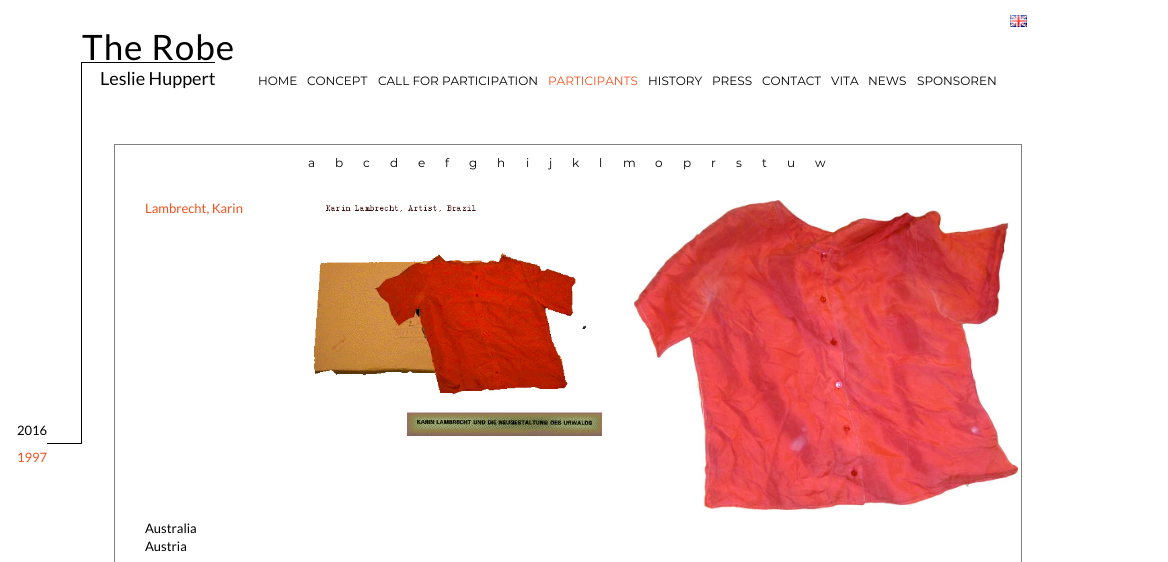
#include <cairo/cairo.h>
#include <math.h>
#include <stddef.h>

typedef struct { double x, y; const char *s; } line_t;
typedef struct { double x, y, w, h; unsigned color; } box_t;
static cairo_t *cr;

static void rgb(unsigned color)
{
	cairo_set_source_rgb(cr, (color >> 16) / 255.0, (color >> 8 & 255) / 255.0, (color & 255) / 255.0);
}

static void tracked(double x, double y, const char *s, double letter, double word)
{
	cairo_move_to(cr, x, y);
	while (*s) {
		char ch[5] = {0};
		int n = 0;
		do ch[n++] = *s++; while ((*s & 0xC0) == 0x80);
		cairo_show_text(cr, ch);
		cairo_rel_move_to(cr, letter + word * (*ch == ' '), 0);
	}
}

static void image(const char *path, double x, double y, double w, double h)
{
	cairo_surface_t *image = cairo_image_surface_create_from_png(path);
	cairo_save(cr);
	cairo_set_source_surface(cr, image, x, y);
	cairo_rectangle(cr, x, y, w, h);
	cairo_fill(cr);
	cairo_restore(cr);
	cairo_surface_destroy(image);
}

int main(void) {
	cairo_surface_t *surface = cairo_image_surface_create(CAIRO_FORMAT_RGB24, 1168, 562);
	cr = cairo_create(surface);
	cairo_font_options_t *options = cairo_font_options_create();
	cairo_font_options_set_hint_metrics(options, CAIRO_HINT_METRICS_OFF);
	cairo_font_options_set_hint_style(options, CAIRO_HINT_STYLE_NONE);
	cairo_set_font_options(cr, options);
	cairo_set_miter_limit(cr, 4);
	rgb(0xffffff);
	cairo_paint(cr);
	image("img/1.png", 1010, 15, 17, 12);
	{
		static const box_t items[] = {
			{81, 62, 134, 1, 0x000000},
			{81, 62, 1, 382, 0x000000},
			{47, 443, 34, 1, 0x000000},
			{114, 144, 908, 1, 0x808080},
			{114, 144, 1, 418, 0x808080},
		};
		for (size_t i = 0; i < sizeof items / sizeof *items; i++) {
			rgb(items[i].color);
			cairo_rectangle(cr, items[i].x, items[i].y, items[i].w, items[i].h);
			cairo_fill(cr);
		}
	}
	image("img/2.png", 314, 205, 288, 231);
	cairo_rectangle(cr, 1021, 144, 1, 418);
	cairo_fill(cr);
	image("img/3.png", 634, 200, 384, 310);
	cairo_select_font_face(cr, "Lato", CAIRO_FONT_SLANT_NORMAL, CAIRO_FONT_WEIGHT_NORMAL);
	cairo_set_font_size(cr, 35);
	rgb(0x000000);
	tracked(82, 60, "The Robe", 1, 0);
	cairo_set_font_size(cr, 18);
	cairo_move_to(cr, 100, 85);
	cairo_show_text(cr, "Leslie Huppert");
	cairo_select_font_face(cr, "Montserrat Thin", CAIRO_FONT_SLANT_NORMAL, CAIRO_FONT_WEIGHT_NORMAL);
	cairo_set_font_size(cr, 12);
	{
		static const line_t items[] = {
			{258, 85, "HOME"},
			{307, 85, "CONCEPT"},
			{378, 85, "CALL FOR PARTICIPATION"},
		};
		for (size_t i = 0; i < sizeof items / sizeof *items; i++) {
			cairo_move_to(cr, items[i].x, items[i].y);
			cairo_show_text(cr, items[i].s);
		}
	}
	rgb(0xf4511e);
	cairo_move_to(cr, 548, 85);
	cairo_show_text(cr, "PARTICIPANTS");
	rgb(0x000000);
	{
		static const line_t items[] = {
			{648, 85, "HISTORY"},
			{712, 85, "PRESS"},
			{762, 85, "CONTACT"},
			{831, 85, "VITA"},
			{868, 85, "NEWS"},
			{917, 85, "SPONSOREN"},
			{308, 167, "a"},
			{335, 167, "b"},
			{363, 167, "c"},
			{390, 167, "d"},
			{418, 167, "e"},
			{445, 167, "f"},
			{469, 167, "g"},
			{497, 167, "h"},
			{526, 167, "i"},
			{549, 167, "j"},
			{572, 167, "k"},
			{599, 167, "l"},
			{623, 167, "m"},
			{655, 167, "o"},
			{683, 167, "p"},
			{711, 167, "r"},
			{736, 167, "s"},
			{762, 167, "t"},
			{787, 167, "u"},
			{815, 167, "w"},
		};
		for (size_t i = 0; i < sizeof items / sizeof *items; i++) {
			cairo_move_to(cr, items[i].x, items[i].y);
			cairo_show_text(cr, items[i].s);
		}
	}
	cairo_select_font_face(cr, "Lato", CAIRO_FONT_SLANT_NORMAL, CAIRO_FONT_WEIGHT_NORMAL);
	cairo_set_font_size(cr, 13);
	cairo_move_to(cr, 17, 435);
	cairo_show_text(cr, "2016");
	rgb(0xf4511e);
	cairo_move_to(cr, 17, 462);
	cairo_show_text(cr, "1997");
	cairo_move_to(cr, 145, 213);
	cairo_show_text(cr, "Lambrecht, Karin");
	rgb(0x000000);
	cairo_move_to(cr, 145, 533);
	cairo_show_text(cr, "Australia");
	cairo_move_to(cr, 145, 551);
	cairo_show_text(cr, "Austria");
	cairo_surface_write_to_png(surface, "page.png");
	cairo_font_options_destroy(options);
	cairo_destroy(cr);
	cairo_surface_destroy(surface);
	return 0;
}
